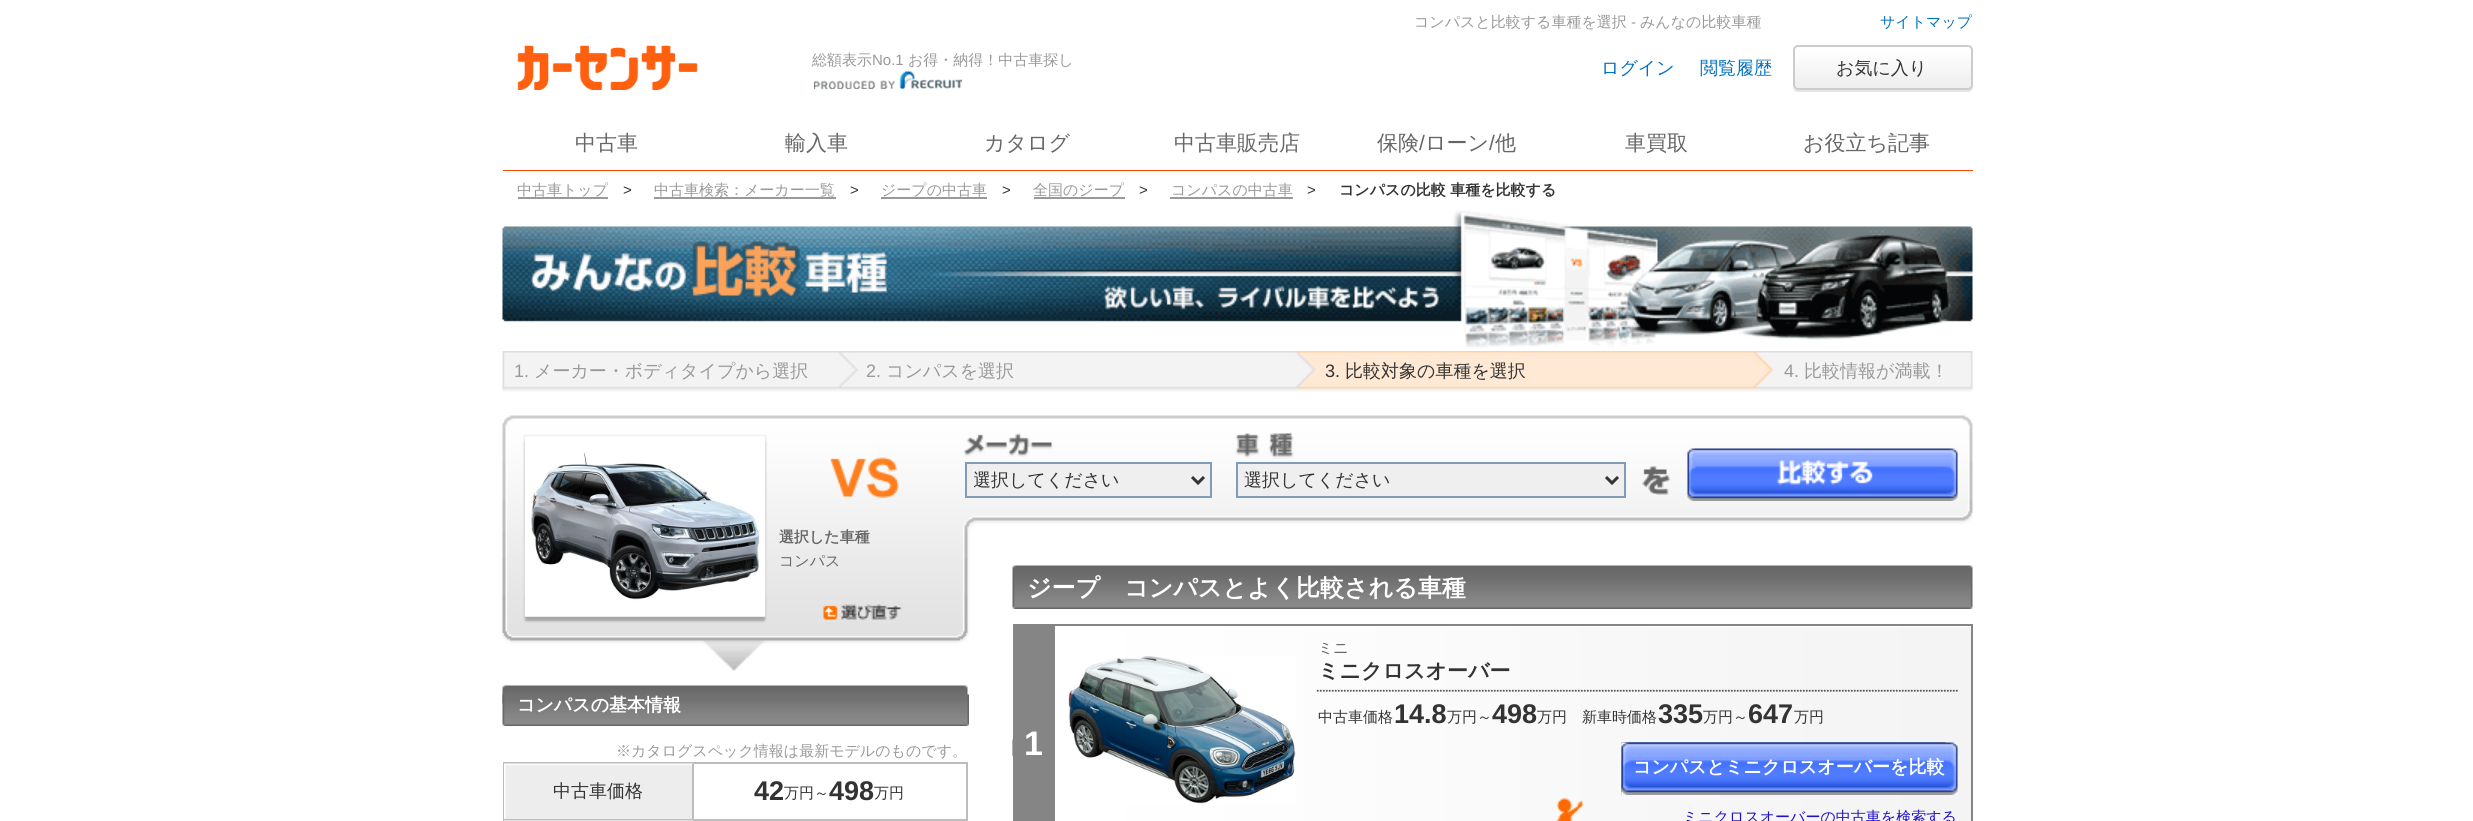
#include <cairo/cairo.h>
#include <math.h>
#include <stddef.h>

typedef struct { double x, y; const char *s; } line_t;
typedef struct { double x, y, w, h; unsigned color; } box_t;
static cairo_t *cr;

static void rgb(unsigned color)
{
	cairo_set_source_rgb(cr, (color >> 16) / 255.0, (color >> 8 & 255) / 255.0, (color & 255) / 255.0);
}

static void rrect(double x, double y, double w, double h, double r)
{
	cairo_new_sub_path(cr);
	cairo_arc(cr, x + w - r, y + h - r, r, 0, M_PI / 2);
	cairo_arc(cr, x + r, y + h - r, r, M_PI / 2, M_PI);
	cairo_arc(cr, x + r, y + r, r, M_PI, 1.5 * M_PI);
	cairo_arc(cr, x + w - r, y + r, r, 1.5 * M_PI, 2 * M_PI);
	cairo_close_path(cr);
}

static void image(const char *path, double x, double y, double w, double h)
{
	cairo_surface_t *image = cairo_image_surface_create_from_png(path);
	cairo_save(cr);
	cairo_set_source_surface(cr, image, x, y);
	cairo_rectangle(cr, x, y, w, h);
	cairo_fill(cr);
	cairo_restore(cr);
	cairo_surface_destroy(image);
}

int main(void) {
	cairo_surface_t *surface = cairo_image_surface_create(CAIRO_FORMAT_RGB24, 2473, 821);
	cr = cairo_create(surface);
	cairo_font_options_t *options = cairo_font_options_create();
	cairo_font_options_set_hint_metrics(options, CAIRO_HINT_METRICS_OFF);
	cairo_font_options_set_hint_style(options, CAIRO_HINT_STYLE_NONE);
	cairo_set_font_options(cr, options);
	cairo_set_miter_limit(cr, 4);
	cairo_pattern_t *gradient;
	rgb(0xffffff);
	cairo_paint(cr);
	image("img/1.png", 517, 45, 181, 45);
	image("img/2.png", 814, 71, 149, 19);
	rgb(0xe6e6e6);
	cairo_new_path(cr);
	cairo_move_to(cr, 1793, 88);
	cairo_curve_to(cr, 1793, 90, 1795, 92, 1798, 92);
	cairo_line_to(cr, 1968, 92);
	cairo_curve_to(cr, 1971, 92, 1973, 90, 1973, 87);
	cairo_line_to(cr, 1973, 52);
	cairo_line_to(cr, 1972, 50);
	cairo_line_to(cr, 1972, 86);
	cairo_curve_to(cr, 1972, 88, 1970, 90, 1968, 90);
	cairo_line_to(cr, 1797, 90);
	cairo_curve_to(cr, 1795, 90, 1794, 89, 1793, 88);
	cairo_close_path(cr);
	cairo_fill(cr);
	cairo_save(cr);
	rrect(1793, 45, 180, 45, 5);
	cairo_clip(cr);
	gradient = cairo_pattern_create_linear(1883, 46, 1883, 89);
	cairo_pattern_add_color_stop_rgba(gradient, 0.1, 1, 1, 1, 1);
	cairo_pattern_add_color_stop_rgba(gradient, 0.9, 0.937, 0.937, 0.937, 1);
	cairo_set_source(cr, gradient);
	cairo_pattern_destroy(gradient);
	cairo_rectangle(cr, 1793, 47, 180, 42);
	cairo_fill(cr);
	cairo_restore(cr);
	rrect(1794, 46, 178, 43, 4);
	rgb(0xcccccc);
	cairo_stroke(cr);
	{
		static const box_t items[] = {
			{503, 170, 1470, 1, 0xfb4809},
			{518, 197, 90, 2, 0x999999},
			{654, 197, 182, 2, 0x999999},
			{881, 197, 106, 2, 0x999999},
			{1034, 197, 91, 2, 0x999999},
			{1170, 197, 123, 2, 0x999999},
		};
		for (size_t i = 0; i < sizeof items / sizeof *items; i++) {
			rgb(items[i].color);
			cairo_rectangle(cr, items[i].x, items[i].y, items[i].w, items[i].h);
			cairo_fill(cr);
		}
	}
	image("img/3.png", 502, 210, 1471, 138);
	image("img/4.png", 502, 351, 1471, 41);
	image("img/5.png", 502, 415, 1471, 256);
	image("img/6.png", 829, 457, 70, 41);
	image("img/7.png", 964, 433, 89, 24);
	image("img/8.png", 1235, 432, 59, 27);
	rgb(0xefefef);
	cairo_rectangle(cr, 966, 463, 245, 34);
	cairo_fill_preserve(cr);
	rgb(0x7f9db9);
	cairo_stroke(cr);
	cairo_new_path(cr);
	cairo_move_to(cr, 1192, 477);
	cairo_line_to(cr, 1198, 483);
	cairo_line_to(cr, 1204, 477);
	rgb(0x333333);
	cairo_set_line_width(cr, 3);
	cairo_stroke(cr);
	rgb(0xefefef);
	cairo_rectangle(cr, 1237, 463, 388, 34);
	cairo_fill_preserve(cr);
	rgb(0x7f9db9);
	cairo_set_line_width(cr, 2);
	cairo_stroke(cr);
	cairo_new_path(cr);
	cairo_move_to(cr, 1606, 477);
	cairo_line_to(cr, 1612, 483);
	cairo_line_to(cr, 1618, 477);
	rgb(0x333333);
	cairo_set_line_width(cr, 3);
	cairo_stroke(cr);
	image("img/9.png", 1642, 466, 28, 29);
	image("img/10.png", 1687, 448, 271, 53);
	image("img/11.png", 525, 436, 240, 181);
	image("img/12.png", 823, 604, 79, 16);
	image("img/13.png", 502, 685, 466, 19);
	image("img/14.png", 502, 694, 467, 32);
	rgb(0xbdbdbd);
	cairo_rectangle(cr, 503, 762, 465, 2);
	cairo_fill(cr);
	cairo_rectangle(cr, 503, 762, 2, 59);
	cairo_fill(cr);
	image("img/15.png", 504, 763, 189, 56);
	{
		static const box_t items[] = {
			{692, 764, 2, 57, 0xbdbdbd},
			{504, 819, 189, 1, 0xbdbdbd},
			{966, 764, 2, 57, 0xbdbdbd},
			{693, 819, 275, 2, 0xbdbdbd},
			{504, 820, 189, 1, 0xdedede},
		};
		for (size_t i = 0; i < sizeof items / sizeof *items; i++) {
			rgb(items[i].color);
			cairo_rectangle(cr, items[i].x, items[i].y, items[i].w, items[i].h);
			cairo_fill(cr);
		}
	}
	image("img/16.png", 1012, 565, 961, 44);
	image("img/17.png", 1012, 627, 959, 194);
	cairo_rectangle(cr, 1014, 625, 958, 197);
	rgb(0x858585);
	cairo_set_line_width(cr, 2);
	cairo_stroke(cr);
	image("img/18.png", 1068, 656, 228, 148);
	cairo_rectangle(cr, 1015, 626, 40, 195);
	cairo_fill(cr);
	image("img/19.png", 1621, 742, 337, 53);
	image("img/20.png", 1621, 742, 325, 53);
	image("img/21.png", 1556, 798, 27, 23);
	cairo_select_font_face(cr, "WenQuanYi Zen Hei Medium", CAIRO_FONT_SLANT_NORMAL, CAIRO_FONT_WEIGHT_NORMAL);
	cairo_set_font_size(cr, 15);
	rgb(0x0070c0);
	cairo_move_to(cr, 1880, 27);
	cairo_show_text(cr, "サイトマップ");
	rgb(0x999999);
	cairo_move_to(cr, 812, 65);
	cairo_show_text(cr, "総額表示");
	cairo_select_font_face(cr, "Liberation Sans", CAIRO_FONT_SLANT_NORMAL, CAIRO_FONT_WEIGHT_NORMAL);
	cairo_move_to(cr, 872, 65);
	cairo_show_text(cr, "No.1");
	cairo_select_font_face(cr, "WenQuanYi Zen Hei Medium", CAIRO_FONT_SLANT_NORMAL, CAIRO_FONT_WEIGHT_NORMAL);
	cairo_move_to(cr, 908, 65);
	cairo_show_text(cr, "お得・納得！中古車探し");
	cairo_set_font_size(cr, 18);
	rgb(0x0070c0);
	cairo_move_to(cr, 1601, 74);
	cairo_show_text(cr, "ログイン");
	cairo_move_to(cr, 1700, 74);
	cairo_show_text(cr, "閲覧履歴");
	rgb(0x333333);
	cairo_move_to(cr, 1836, 74);
	cairo_show_text(cr, "お気に入り");
	cairo_set_font_size(cr, 21);
	rgb(0x666666);
	{
		static const line_t items[] = {
			{575, 150, "中古車"},
			{785, 150, "輸入車"},
			{984, 150, "カタログ"},
			{1174, 150, "中古車販売店"},
			{1377, 150, "保険"},
		};
		for (size_t i = 0; i < sizeof items / sizeof *items; i++) {
			cairo_move_to(cr, items[i].x, items[i].y);
			cairo_show_text(cr, items[i].s);
		}
	}
	cairo_select_font_face(cr, "Liberation Sans", CAIRO_FONT_SLANT_NORMAL, CAIRO_FONT_WEIGHT_NORMAL);
	cairo_move_to(cr, 1419, 150);
	cairo_show_text(cr, "/");
	cairo_select_font_face(cr, "WenQuanYi Zen Hei Medium", CAIRO_FONT_SLANT_NORMAL, CAIRO_FONT_WEIGHT_NORMAL);
	cairo_move_to(cr, 1425, 150);
	cairo_show_text(cr, "ローン");
	cairo_select_font_face(cr, "Liberation Sans", CAIRO_FONT_SLANT_NORMAL, CAIRO_FONT_WEIGHT_NORMAL);
	cairo_move_to(cr, 1489, 150);
	cairo_show_text(cr, "/");
	cairo_select_font_face(cr, "WenQuanYi Zen Hei Medium", CAIRO_FONT_SLANT_NORMAL, CAIRO_FONT_WEIGHT_NORMAL);
	{
		static const line_t items[] = {
			{1495, 150, "他"},
			{1625, 150, "車買取"},
			{1803, 150, "お役立ち記事"},
		};
		for (size_t i = 0; i < sizeof items / sizeof *items; i++) {
			cairo_move_to(cr, items[i].x, items[i].y);
			cairo_show_text(cr, items[i].s);
		}
	}
	cairo_set_font_size(cr, 15);
	rgb(0x999999);
	cairo_move_to(cr, 1414, 27);
	cairo_show_text(cr, "コンパスと比較する車種を選択");
	cairo_select_font_face(cr, "Liberation Sans", CAIRO_FONT_SLANT_NORMAL, CAIRO_FONT_WEIGHT_NORMAL);
	cairo_move_to(cr, 1631, 27);
	cairo_show_text(cr, "-");
	cairo_select_font_face(cr, "WenQuanYi Zen Hei Medium", CAIRO_FONT_SLANT_NORMAL, CAIRO_FONT_WEIGHT_NORMAL);
	cairo_move_to(cr, 1640, 27);
	cairo_show_text(cr, "みんなの比較車種");
	cairo_move_to(cr, 517, 195);
	cairo_show_text(cr, "中古車トップ");
	cairo_select_font_face(cr, "Liberation Sans", CAIRO_FONT_SLANT_NORMAL, CAIRO_FONT_WEIGHT_NORMAL);
	rgb(0x333333);
	cairo_move_to(cr, 623, 195);
	cairo_show_text(cr, ">");
	cairo_select_font_face(cr, "WenQuanYi Zen Hei Medium", CAIRO_FONT_SLANT_NORMAL, CAIRO_FONT_WEIGHT_NORMAL);
	rgb(0x999999);
	cairo_move_to(cr, 654, 195);
	cairo_show_text(cr, "中古車検索：メーカー一覧");
	cairo_select_font_face(cr, "Liberation Sans", CAIRO_FONT_SLANT_NORMAL, CAIRO_FONT_WEIGHT_NORMAL);
	rgb(0x333333);
	cairo_move_to(cr, 850, 195);
	cairo_show_text(cr, ">");
	cairo_select_font_face(cr, "WenQuanYi Zen Hei Medium", CAIRO_FONT_SLANT_NORMAL, CAIRO_FONT_WEIGHT_NORMAL);
	rgb(0x999999);
	cairo_move_to(cr, 881, 195);
	cairo_show_text(cr, "ジープの中古車");
	cairo_select_font_face(cr, "Liberation Sans", CAIRO_FONT_SLANT_NORMAL, CAIRO_FONT_WEIGHT_NORMAL);
	rgb(0x333333);
	cairo_move_to(cr, 1002, 195);
	cairo_show_text(cr, ">");
	cairo_select_font_face(cr, "WenQuanYi Zen Hei Medium", CAIRO_FONT_SLANT_NORMAL, CAIRO_FONT_WEIGHT_NORMAL);
	rgb(0x999999);
	cairo_move_to(cr, 1033, 195);
	cairo_show_text(cr, "全国のジープ");
	cairo_select_font_face(cr, "Liberation Sans", CAIRO_FONT_SLANT_NORMAL, CAIRO_FONT_WEIGHT_NORMAL);
	rgb(0x333333);
	cairo_move_to(cr, 1139, 195);
	cairo_show_text(cr, ">");
	cairo_select_font_face(cr, "WenQuanYi Zen Hei Medium", CAIRO_FONT_SLANT_NORMAL, CAIRO_FONT_WEIGHT_NORMAL);
	rgb(0x999999);
	cairo_move_to(cr, 1171, 195);
	cairo_show_text(cr, "コンパスの中古車");
	cairo_select_font_face(cr, "Liberation Sans", CAIRO_FONT_SLANT_NORMAL, CAIRO_FONT_WEIGHT_NORMAL);
	rgb(0x333333);
	cairo_move_to(cr, 1307, 195);
	cairo_show_text(cr, ">");
	cairo_select_font_face(cr, "WenQuanYi Zen Hei", CAIRO_FONT_SLANT_NORMAL, CAIRO_FONT_WEIGHT_BOLD);
	cairo_move_to(cr, 1339, 195);
	cairo_show_text(cr, "コンパスの比較 車種を比較する");
	cairo_select_font_face(cr, "Liberation Sans", CAIRO_FONT_SLANT_NORMAL, CAIRO_FONT_WEIGHT_NORMAL);
	cairo_set_font_size(cr, 18);
	rgb(0x999999);
	cairo_move_to(cr, 514, 377);
	cairo_show_text(cr, "1.");
	cairo_select_font_face(cr, "WenQuanYi Zen Hei Medium", CAIRO_FONT_SLANT_NORMAL, CAIRO_FONT_WEIGHT_NORMAL);
	cairo_move_to(cr, 534, 377);
	cairo_show_text(cr, "メーカー・ボディタイプから選択");
	cairo_select_font_face(cr, "Liberation Sans", CAIRO_FONT_SLANT_NORMAL, CAIRO_FONT_WEIGHT_NORMAL);
	cairo_move_to(cr, 866, 377);
	cairo_show_text(cr, "2.");
	cairo_select_font_face(cr, "WenQuanYi Zen Hei Medium", CAIRO_FONT_SLANT_NORMAL, CAIRO_FONT_WEIGHT_NORMAL);
	cairo_move_to(cr, 886, 377);
	cairo_show_text(cr, "コンパスを選択");
	cairo_select_font_face(cr, "Liberation Sans", CAIRO_FONT_SLANT_NORMAL, CAIRO_FONT_WEIGHT_NORMAL);
	rgb(0x333333);
	cairo_move_to(cr, 1325, 377);
	cairo_show_text(cr, "3.");
	cairo_select_font_face(cr, "WenQuanYi Zen Hei Medium", CAIRO_FONT_SLANT_NORMAL, CAIRO_FONT_WEIGHT_NORMAL);
	cairo_move_to(cr, 1345, 377);
	cairo_show_text(cr, "比較対象の車種を選択");
	cairo_select_font_face(cr, "Liberation Sans", CAIRO_FONT_SLANT_NORMAL, CAIRO_FONT_WEIGHT_NORMAL);
	rgb(0x999999);
	cairo_move_to(cr, 1784, 377);
	cairo_show_text(cr, "4.");
	cairo_select_font_face(cr, "WenQuanYi Zen Hei Medium", CAIRO_FONT_SLANT_NORMAL, CAIRO_FONT_WEIGHT_NORMAL);
	cairo_move_to(cr, 1804, 377);
	cairo_show_text(cr, "比較情報が満載！");
	cairo_save(cr);
	cairo_rectangle(cr, 974, 468, 210, 24);
	cairo_clip(cr);
	rgb(0x333333);
	cairo_move_to(cr, 973, 486);
	cairo_show_text(cr, "選択してください");
	cairo_restore(cr);
	rgb(0x333333);
	cairo_move_to(cr, 1244, 486);
	cairo_show_text(cr, "選択してください");
	cairo_select_font_face(cr, "WenQuanYi Zen Hei", CAIRO_FONT_SLANT_NORMAL, CAIRO_FONT_WEIGHT_BOLD);
	cairo_set_font_size(cr, 15);
	rgb(0x666666);
	cairo_move_to(cr, 779, 542);
	cairo_show_text(cr, "選択した車種");
	cairo_select_font_face(cr, "WenQuanYi Zen Hei Medium", CAIRO_FONT_SLANT_NORMAL, CAIRO_FONT_WEIGHT_NORMAL);
	cairo_move_to(cr, 779, 566);
	cairo_show_text(cr, "コンパス");
	cairo_select_font_face(cr, "WenQuanYi Zen Hei", CAIRO_FONT_SLANT_NORMAL, CAIRO_FONT_WEIGHT_BOLD);
	cairo_set_font_size(cr, 18);
	rgb(0xffffff);
	cairo_move_to(cr, 517, 711);
	cairo_show_text(cr, "コンパスの基本情報");
	cairo_select_font_face(cr, "WenQuanYi Zen Hei Medium", CAIRO_FONT_SLANT_NORMAL, CAIRO_FONT_WEIGHT_NORMAL);
	cairo_set_font_size(cr, 15);
	rgb(0x999999);
	cairo_move_to(cr, 616, 756);
	cairo_show_text(cr, "※カタログスペック情報は最新モデルのものです。");
	cairo_set_font_size(cr, 18);
	rgb(0x333333);
	cairo_move_to(cr, 553, 797);
	cairo_show_text(cr, "中古車価格");
	cairo_select_font_face(cr, "Liberation Sans", CAIRO_FONT_SLANT_NORMAL, CAIRO_FONT_WEIGHT_BOLD);
	cairo_set_font_size(cr, 27);
	cairo_move_to(cr, 754, 800);
	cairo_show_text(cr, "42");
	cairo_select_font_face(cr, "WenQuanYi Zen Hei Medium", CAIRO_FONT_SLANT_NORMAL, CAIRO_FONT_WEIGHT_NORMAL);
	cairo_set_font_size(cr, 15);
	cairo_move_to(cr, 784, 798);
	cairo_show_text(cr, "万円～");
	cairo_select_font_face(cr, "Liberation Sans", CAIRO_FONT_SLANT_NORMAL, CAIRO_FONT_WEIGHT_BOLD);
	cairo_set_font_size(cr, 27);
	cairo_move_to(cr, 829, 800);
	cairo_show_text(cr, "498");
	cairo_select_font_face(cr, "WenQuanYi Zen Hei Medium", CAIRO_FONT_SLANT_NORMAL, CAIRO_FONT_WEIGHT_NORMAL);
	cairo_set_font_size(cr, 15);
	cairo_move_to(cr, 874, 798);
	cairo_show_text(cr, "万円");
	cairo_select_font_face(cr, "WenQuanYi Zen Hei", CAIRO_FONT_SLANT_NORMAL, CAIRO_FONT_WEIGHT_BOLD);
	cairo_set_font_size(cr, 24);
	rgb(0xffffff);
	cairo_move_to(cr, 1027, 596);
	cairo_show_text(cr, "ジープ　コンパスとよく比較される車種");
	cairo_select_font_face(cr, "WenQuanYi Zen Hei Medium", CAIRO_FONT_SLANT_NORMAL, CAIRO_FONT_WEIGHT_NORMAL);
	cairo_set_font_size(cr, 15);
	rgb(0x666666);
	cairo_move_to(cr, 1318, 653);
	cairo_show_text(cr, "ミニ");
	cairo_select_font_face(cr, "WenQuanYi Zen Hei", CAIRO_FONT_SLANT_NORMAL, CAIRO_FONT_WEIGHT_BOLD);
	cairo_set_font_size(cr, 21);
	rgb(0x333333);
	cairo_move_to(cr, 1318, 678);
	cairo_show_text(cr, "ミニクロスオーバー");
	cairo_select_font_face(cr, "WenQuanYi Zen Hei Medium", CAIRO_FONT_SLANT_NORMAL, CAIRO_FONT_WEIGHT_NORMAL);
	cairo_set_font_size(cr, 15);
	cairo_move_to(cr, 1318, 722);
	cairo_show_text(cr, "中古車価格");
	cairo_select_font_face(cr, "Liberation Sans", CAIRO_FONT_SLANT_NORMAL, CAIRO_FONT_WEIGHT_BOLD);
	cairo_set_font_size(cr, 27);
	cairo_move_to(cr, 1394, 723);
	cairo_show_text(cr, "14.8");
	cairo_select_font_face(cr, "WenQuanYi Zen Hei Medium", CAIRO_FONT_SLANT_NORMAL, CAIRO_FONT_WEIGHT_NORMAL);
	cairo_set_font_size(cr, 15);
	cairo_move_to(cr, 1447, 722);
	cairo_show_text(cr, "万円～");
	cairo_select_font_face(cr, "Liberation Sans", CAIRO_FONT_SLANT_NORMAL, CAIRO_FONT_WEIGHT_BOLD);
	cairo_set_font_size(cr, 27);
	cairo_move_to(cr, 1492, 723);
	cairo_show_text(cr, "498");
	cairo_select_font_face(cr, "WenQuanYi Zen Hei Medium", CAIRO_FONT_SLANT_NORMAL, CAIRO_FONT_WEIGHT_NORMAL);
	cairo_set_font_size(cr, 15);
	cairo_move_to(cr, 1537, 722);
	cairo_show_text(cr, "万円");
	cairo_move_to(cr, 1582, 722);
	cairo_show_text(cr, "新車時価格");
	cairo_select_font_face(cr, "Liberation Sans", CAIRO_FONT_SLANT_NORMAL, CAIRO_FONT_WEIGHT_BOLD);
	cairo_set_font_size(cr, 27);
	cairo_move_to(cr, 1658, 723);
	cairo_show_text(cr, "335");
	cairo_select_font_face(cr, "WenQuanYi Zen Hei Medium", CAIRO_FONT_SLANT_NORMAL, CAIRO_FONT_WEIGHT_NORMAL);
	cairo_set_font_size(cr, 15);
	cairo_move_to(cr, 1703, 722);
	cairo_show_text(cr, "万円～");
	cairo_select_font_face(cr, "Liberation Sans", CAIRO_FONT_SLANT_NORMAL, CAIRO_FONT_WEIGHT_BOLD);
	cairo_set_font_size(cr, 27);
	cairo_move_to(cr, 1748, 723);
	cairo_show_text(cr, "647");
	cairo_select_font_face(cr, "WenQuanYi Zen Hei Medium", CAIRO_FONT_SLANT_NORMAL, CAIRO_FONT_WEIGHT_NORMAL);
	cairo_set_font_size(cr, 15);
	cairo_move_to(cr, 1794, 722);
	cairo_show_text(cr, "万円");
	cairo_select_font_face(cr, "Liberation Sans", CAIRO_FONT_SLANT_NORMAL, CAIRO_FONT_WEIGHT_BOLD);
	cairo_set_font_size(cr, 34);
	rgb(0xffffff);
	cairo_move_to(cr, 1024, 755);
	cairo_show_text(cr, "1");
	cairo_select_font_face(cr, "WenQuanYi Zen Hei", CAIRO_FONT_SLANT_NORMAL, CAIRO_FONT_WEIGHT_BOLD);
	cairo_set_font_size(cr, 18);
	cairo_move_to(cr, 1633, 773);
	cairo_show_text(cr, "コンパスとミニクロスオーバーを比較");
	cairo_select_font_face(cr, "WenQuanYi Zen Hei Medium", CAIRO_FONT_SLANT_NORMAL, CAIRO_FONT_WEIGHT_NORMAL);
	cairo_set_font_size(cr, 15);
	rgb(0x1e0fca);
	cairo_move_to(cr, 1683, 822);
	cairo_show_text(cr, "ミニクロスオーバーの中古車を検索する");
	cairo_surface_write_to_png(surface, "page.png");
	cairo_font_options_destroy(options);
	cairo_destroy(cr);
	cairo_surface_destroy(surface);
	return 0;
}
